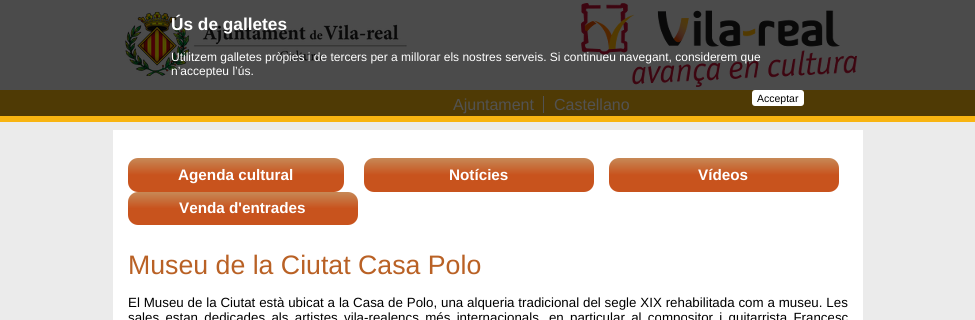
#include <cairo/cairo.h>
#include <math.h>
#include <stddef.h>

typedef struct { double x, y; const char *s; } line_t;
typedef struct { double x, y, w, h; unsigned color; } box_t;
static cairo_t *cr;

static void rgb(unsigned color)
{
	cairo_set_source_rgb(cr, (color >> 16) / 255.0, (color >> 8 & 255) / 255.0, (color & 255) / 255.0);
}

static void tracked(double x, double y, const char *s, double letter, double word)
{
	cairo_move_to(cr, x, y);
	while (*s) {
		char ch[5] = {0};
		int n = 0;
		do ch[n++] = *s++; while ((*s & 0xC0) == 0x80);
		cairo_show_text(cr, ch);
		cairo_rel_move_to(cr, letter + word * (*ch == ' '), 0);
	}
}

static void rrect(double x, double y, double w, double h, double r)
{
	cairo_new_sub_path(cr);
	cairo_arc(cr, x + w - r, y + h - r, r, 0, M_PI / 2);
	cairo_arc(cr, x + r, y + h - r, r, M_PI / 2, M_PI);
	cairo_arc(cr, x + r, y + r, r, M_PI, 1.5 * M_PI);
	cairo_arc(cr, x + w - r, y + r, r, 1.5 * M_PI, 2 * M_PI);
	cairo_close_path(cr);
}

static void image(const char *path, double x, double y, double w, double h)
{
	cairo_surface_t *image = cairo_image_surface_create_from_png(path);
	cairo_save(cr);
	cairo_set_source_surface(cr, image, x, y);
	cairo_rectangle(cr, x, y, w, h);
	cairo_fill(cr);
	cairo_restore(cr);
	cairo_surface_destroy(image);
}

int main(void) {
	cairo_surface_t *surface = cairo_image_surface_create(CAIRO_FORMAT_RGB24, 975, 320);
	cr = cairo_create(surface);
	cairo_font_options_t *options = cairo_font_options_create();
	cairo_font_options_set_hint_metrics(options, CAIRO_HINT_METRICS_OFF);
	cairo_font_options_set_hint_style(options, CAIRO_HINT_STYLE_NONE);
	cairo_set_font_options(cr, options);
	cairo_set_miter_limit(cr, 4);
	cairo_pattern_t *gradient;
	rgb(0xebebeb);
	cairo_paint(cr);
	rgb(0x4b4b4b);
	cairo_rectangle(cr, 0, 0, 975, 90);
	cairo_fill(cr);
	rgb(0x4f3a05);
	cairo_rectangle(cr, 0, 90, 975, 26);
	cairo_fill(cr);
	rgb(0xffffff);
	rrect(752, 90, 52, 16, 3);
	cairo_fill(cr);
	image("img/1.png", 581, 3, 276, 84);
	image("img/2.png", 125, 11, 282, 65);
	{
		static const box_t items[] = {
			{0, 116, 975, 6, 0xf8b411},
			{543, 96, 1, 17, 0x525252},
			{113, 130, 750, 190, 0xffffff},
		};
		for (size_t i = 0; i < sizeof items / sizeof *items; i++) {
			rgb(items[i].color);
			cairo_rectangle(cr, items[i].x, items[i].y, items[i].w, items[i].h);
			cairo_fill(cr);
		}
	}
	gradient = cairo_pattern_create_linear(236, 158, 236, 192);
	cairo_pattern_add_color_stop_rgba(gradient, 0, 0.78, 0.537, 0.341, 1);
	cairo_pattern_add_color_stop_rgba(gradient, 0.5, 0.784, 0.325, 0.114, 1);
	cairo_pattern_add_color_stop_rgba(gradient, 1, 0.784, 0.325, 0.114, 1);
	cairo_set_source(cr, gradient);
	cairo_pattern_destroy(gradient);
	rrect(128, 158, 216, 34, 10);
	cairo_fill(cr);
	gradient = cairo_pattern_create_linear(479, 158, 479, 192);
	cairo_pattern_add_color_stop_rgba(gradient, 0, 0.78, 0.537, 0.341, 1);
	cairo_pattern_add_color_stop_rgba(gradient, 0.5, 0.784, 0.325, 0.114, 1);
	cairo_pattern_add_color_stop_rgba(gradient, 1, 0.784, 0.325, 0.114, 1);
	cairo_set_source(cr, gradient);
	cairo_pattern_destroy(gradient);
	rrect(364, 158, 230, 34, 10);
	cairo_fill(cr);
	gradient = cairo_pattern_create_linear(724, 158, 724, 192);
	cairo_pattern_add_color_stop_rgba(gradient, 0, 0.78, 0.537, 0.341, 1);
	cairo_pattern_add_color_stop_rgba(gradient, 0.5, 0.784, 0.325, 0.114, 1);
	cairo_pattern_add_color_stop_rgba(gradient, 1, 0.784, 0.325, 0.114, 1);
	cairo_set_source(cr, gradient);
	cairo_pattern_destroy(gradient);
	rrect(609, 158, 230, 34, 10);
	cairo_fill(cr);
	gradient = cairo_pattern_create_linear(243, 192, 243, 225);
	cairo_pattern_add_color_stop_rgba(gradient, 0, 0.78, 0.537, 0.341, 1);
	cairo_pattern_add_color_stop_rgba(gradient, 0.5, 0.784, 0.325, 0.114, 1);
	cairo_pattern_add_color_stop_rgba(gradient, 1, 0.784, 0.325, 0.114, 1);
	cairo_set_source(cr, gradient);
	cairo_pattern_destroy(gradient);
	rrect(128, 192, 230, 33, 10);
	cairo_fill(cr);
	cairo_select_font_face(cr, "Liberation Sans", CAIRO_FONT_SLANT_NORMAL, CAIRO_FONT_WEIGHT_BOLD);
	cairo_set_font_size(cr, 17.25);
	rgb(0xffffff);
	cairo_move_to(cr, 171, 30);
	cairo_show_text(cr, "Ús de galletes");
	cairo_select_font_face(cr, "Liberation Sans", CAIRO_FONT_SLANT_NORMAL, CAIRO_FONT_WEIGHT_NORMAL);
	cairo_set_font_size(cr, 12);
	cairo_move_to(cr, 171, 61);
	cairo_show_text(cr, "Utilitzem galletes pròpies i de tercers per a millorar els nostres serveis. Si continueu navegant, considerem que");
	cairo_move_to(cr, 171, 75);
	cairo_show_text(cr, "n’accepteu l’ús.");
	cairo_set_font_size(cr, 10.5);
	rgb(0x000000);
	cairo_move_to(cr, 757, 102);
	cairo_show_text(cr, "Acceptar");
	cairo_set_font_size(cr, 16);
	rgb(0x525252);
	cairo_move_to(cr, 453, 110);
	cairo_show_text(cr, "Ajuntament");
	cairo_move_to(cr, 554, 110);
	cairo_show_text(cr, "Castellano");
	cairo_select_font_face(cr, "Liberation Sans", CAIRO_FONT_SLANT_NORMAL, CAIRO_FONT_WEIGHT_BOLD);
	cairo_set_font_size(cr, 15.25);
	rgb(0xffffff);
	{
		static const line_t items[] = {
			{178, 180, "Agenda cultural"},
			{449, 180, "Notícies"},
			{698, 180, "Vídeos"},
			{179, 213, "Venda d'entrades"},
		};
		for (size_t i = 0; i < sizeof items / sizeof *items; i++) {
			cairo_move_to(cr, items[i].x, items[i].y);
			cairo_show_text(cr, items[i].s);
		}
	}
	cairo_select_font_face(cr, "Liberation Sans", CAIRO_FONT_SLANT_NORMAL, CAIRO_FONT_WEIGHT_NORMAL);
	cairo_set_font_size(cr, 26.7);
	rgb(0xb96125);
	cairo_move_to(cr, 128, 274);
	cairo_show_text(cr, "Museu de la Ciutat Casa Polo");
	cairo_set_font_size(cr, 13.33);
	rgb(0x000000);
	tracked(128, 307, "El Museu de la Ciutat està ubicat a la Casa de Polo, una alqueria tradicional del segle XIX rehabilitada com a museu. Les", 0, 0.15);
	tracked(128, 322, "sales estan dedicades als artistes vila-realencs més internacionals, en particular al compositor i guitarrista Francesc", 0, 2.6);
	cairo_surface_write_to_png(surface, "page.png");
	cairo_font_options_destroy(options);
	cairo_destroy(cr);
	cairo_surface_destroy(surface);
	return 0;
}
